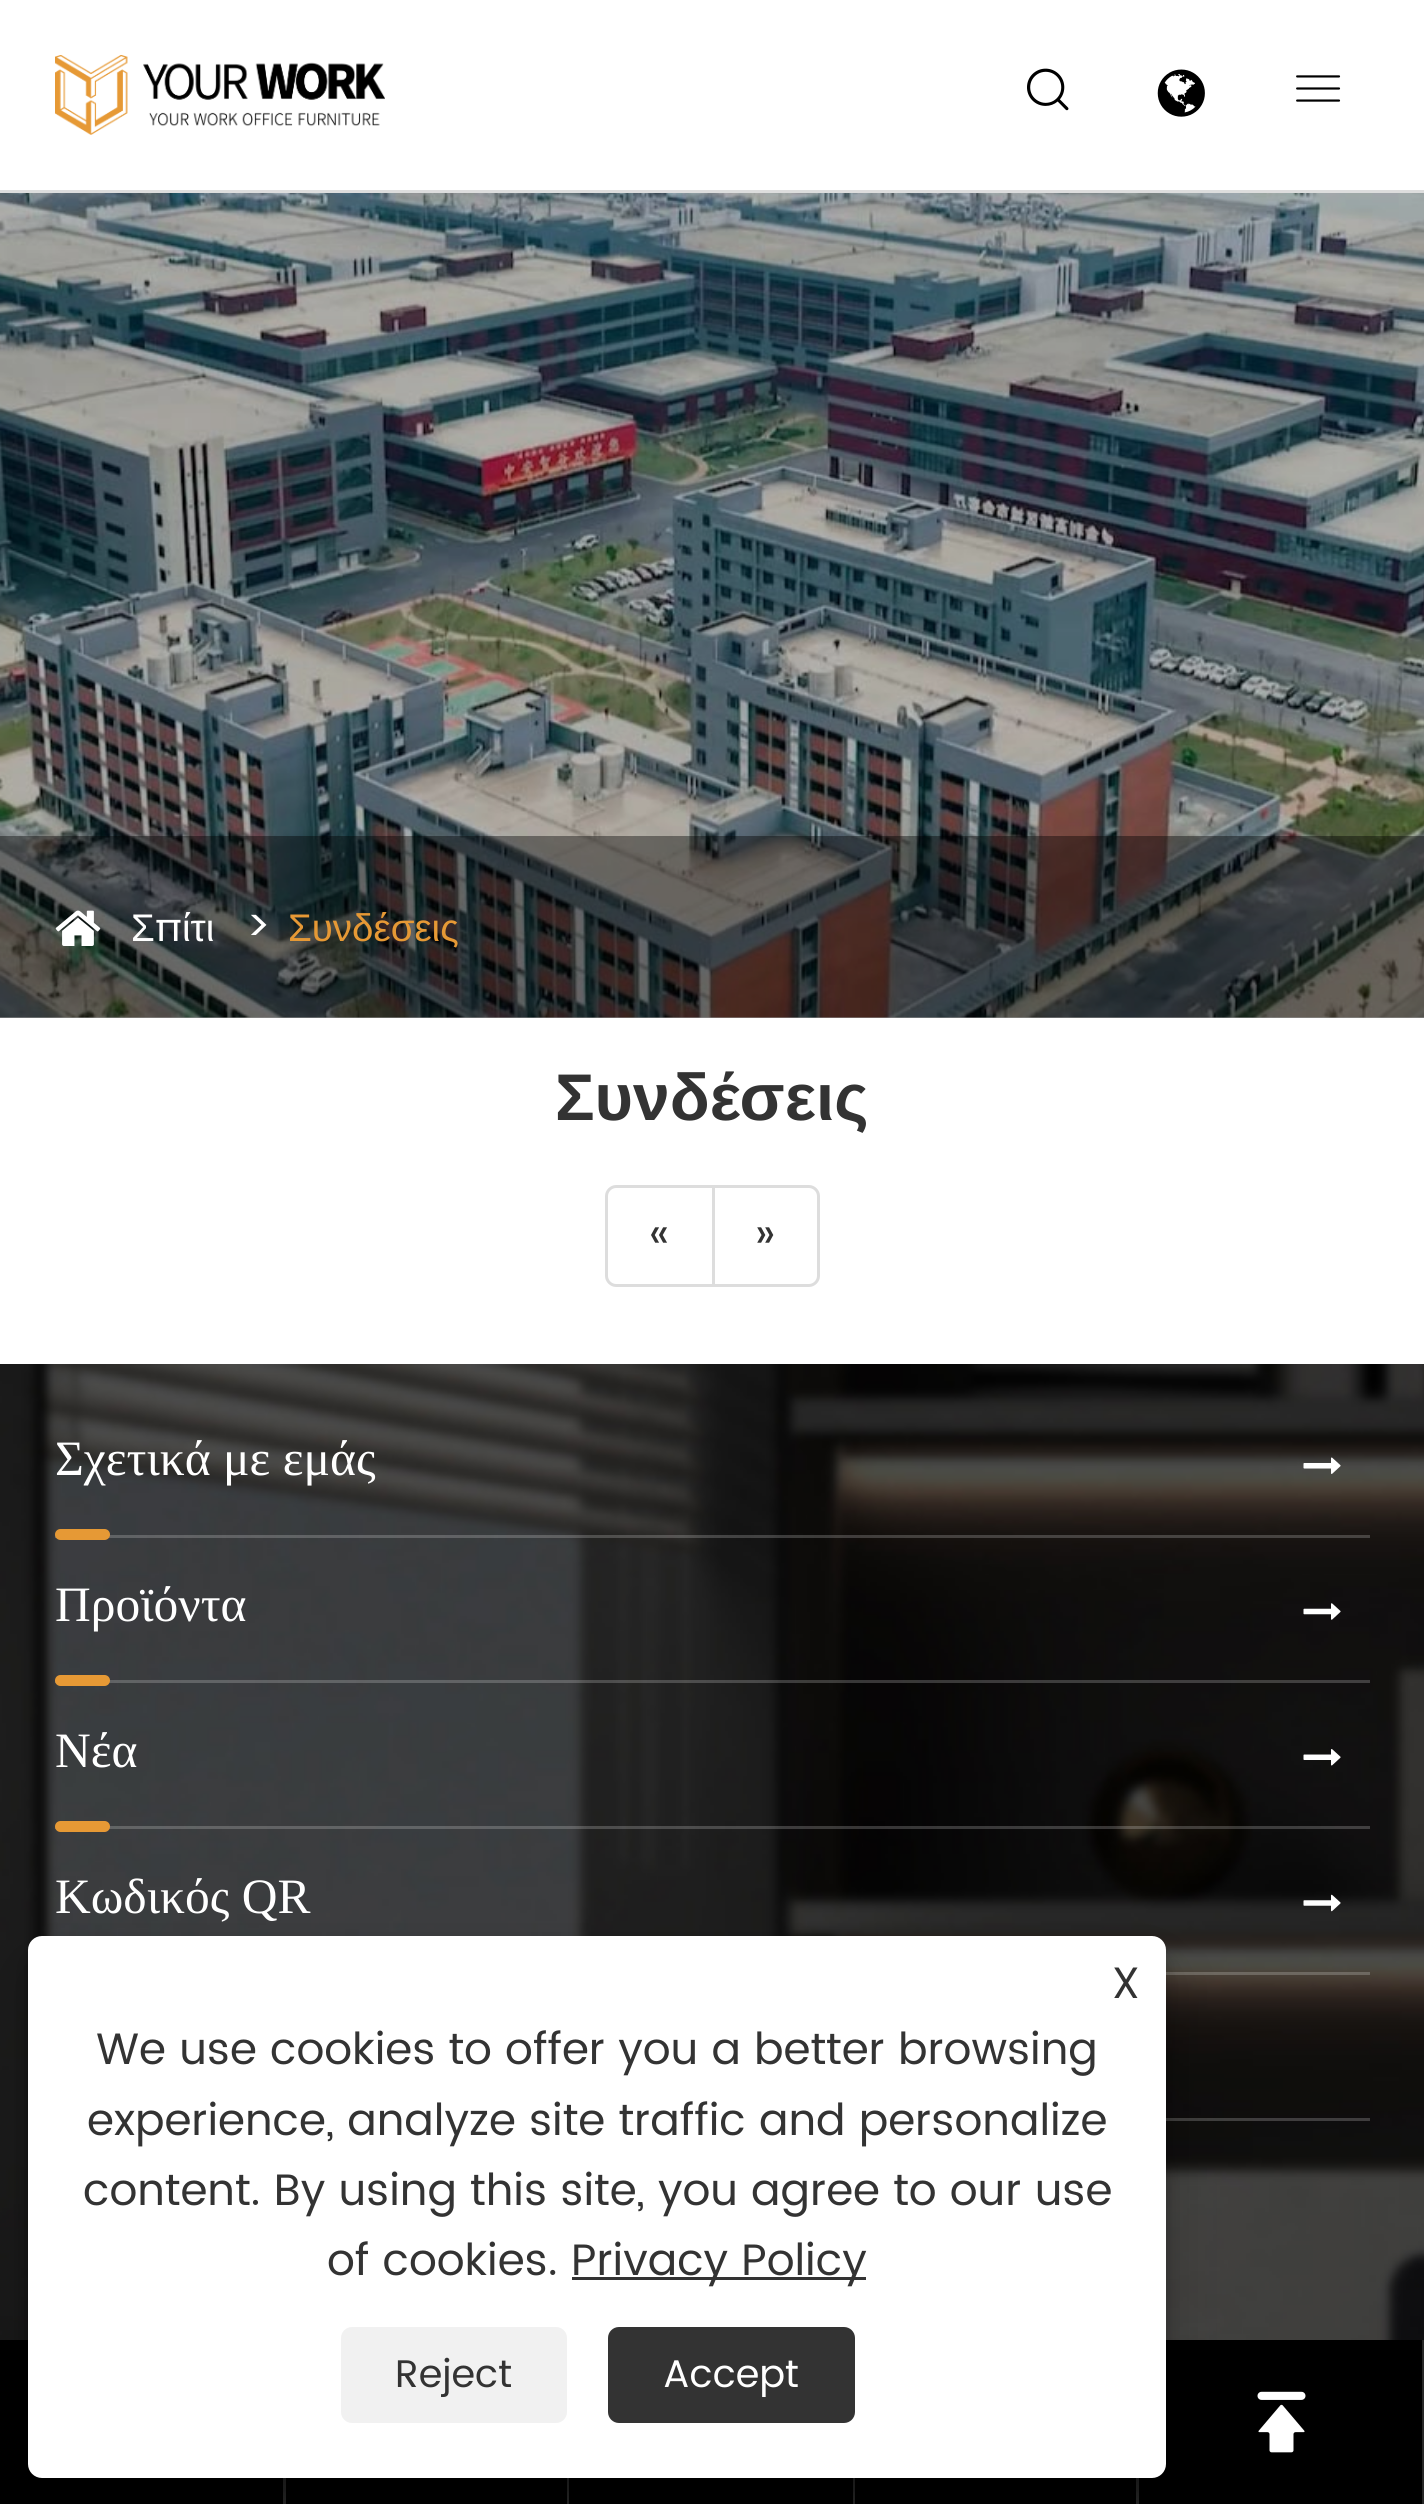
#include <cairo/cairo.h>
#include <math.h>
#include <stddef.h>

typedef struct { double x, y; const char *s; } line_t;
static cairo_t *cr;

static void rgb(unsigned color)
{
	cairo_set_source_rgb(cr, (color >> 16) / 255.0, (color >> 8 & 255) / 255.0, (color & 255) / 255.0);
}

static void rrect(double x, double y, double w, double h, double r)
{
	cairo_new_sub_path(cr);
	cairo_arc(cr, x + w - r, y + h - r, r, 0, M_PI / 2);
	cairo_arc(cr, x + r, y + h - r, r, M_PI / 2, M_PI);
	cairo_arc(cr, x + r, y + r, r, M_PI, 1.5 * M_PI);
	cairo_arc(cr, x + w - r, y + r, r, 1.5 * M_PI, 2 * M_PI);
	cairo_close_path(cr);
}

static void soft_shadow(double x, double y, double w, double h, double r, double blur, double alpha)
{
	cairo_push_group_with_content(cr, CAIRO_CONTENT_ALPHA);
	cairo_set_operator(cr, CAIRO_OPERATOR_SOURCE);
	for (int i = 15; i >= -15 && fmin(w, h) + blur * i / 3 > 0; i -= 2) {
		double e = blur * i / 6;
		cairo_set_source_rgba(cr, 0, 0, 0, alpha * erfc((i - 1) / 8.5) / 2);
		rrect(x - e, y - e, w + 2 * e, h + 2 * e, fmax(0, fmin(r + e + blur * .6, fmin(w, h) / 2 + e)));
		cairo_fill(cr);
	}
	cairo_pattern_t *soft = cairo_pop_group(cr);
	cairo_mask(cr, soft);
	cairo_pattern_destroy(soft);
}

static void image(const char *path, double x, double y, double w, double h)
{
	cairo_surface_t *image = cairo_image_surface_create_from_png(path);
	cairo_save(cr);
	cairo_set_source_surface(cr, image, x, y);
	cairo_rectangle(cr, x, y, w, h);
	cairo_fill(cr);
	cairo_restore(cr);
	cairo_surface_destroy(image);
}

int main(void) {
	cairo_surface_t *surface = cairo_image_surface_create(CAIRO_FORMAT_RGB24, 1424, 2504);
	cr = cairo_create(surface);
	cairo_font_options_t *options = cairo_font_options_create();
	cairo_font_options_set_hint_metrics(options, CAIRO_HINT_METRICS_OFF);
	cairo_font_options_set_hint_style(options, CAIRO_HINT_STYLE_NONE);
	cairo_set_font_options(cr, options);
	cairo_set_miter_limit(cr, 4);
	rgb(0xffffff);
	cairo_paint(cr);
	rgb(0xdddddd);
	cairo_rectangle(cr, 0, 190, 1424, 3);
	cairo_fill(cr);
	image("img/1.png", 55, 55, 330, 80);
	image("img/2.png", 1027, 68, 42, 43);
	image("img/3.png", 1157, 69, 48, 48);
	image("img/4.png", 1296, 75, 45, 27);
	image("img/5.png", 0, 193, 1424, 825);
	cairo_set_source_rgba(cr, 0, 0, 0, 0.4);
	cairo_rectangle(cr, 0, 836, 1424, 182);
	cairo_fill(cr);
	image("img/6.png", 55, 910, 46, 36);
	cairo_new_path(cr);
	cairo_move_to(cr, 616, 1186.5);
	cairo_line_to(cr, 713.5, 1186.5);
	cairo_line_to(cr, 713.5, 1285.5);
	cairo_line_to(cr, 616, 1285.5);
	cairo_curve_to(cr, 611, 1285.5, 606.5, 1281, 606.5, 1276);
	cairo_line_to(cr, 606.5, 1196);
	cairo_curve_to(cr, 606.5, 1191, 611, 1186.5, 616, 1186.5);
	cairo_close_path(cr);
	rgb(0xdddddd);
	cairo_set_line_width(cr, 3);
	cairo_stroke(cr);
	rgb(0xffffff);
	cairo_new_path(cr);
	cairo_move_to(cr, 713.5, 1186.5);
	cairo_line_to(cr, 809, 1186.5);
	cairo_curve_to(cr, 814, 1186.5, 818.5, 1191, 818.5, 1196);
	cairo_line_to(cr, 818.5, 1276);
	cairo_curve_to(cr, 818.5, 1281, 814, 1285.5, 809, 1285.5);
	cairo_line_to(cr, 713.5, 1285.5);
	cairo_close_path(cr);
	cairo_fill_preserve(cr);
	rgb(0xdddddd);
	cairo_stroke(cr);
	image("img/7.png", 0, 1364, 1424, 976);
	cairo_set_source_rgba(cr, 1, 1, 1, 0.2);
	cairo_rectangle(cr, 55, 1535, 1315, 3);
	cairo_fill(cr);
	image("img/8.png", 1303, 1457, 38, 17);
	rgb(0xe69935);
	rrect(55, 1529, 55, 11, 5.5);
	cairo_fill(cr);
	cairo_set_source_rgba(cr, 1, 1, 1, 0.2);
	cairo_rectangle(cr, 55, 1680, 1315, 3);
	cairo_fill(cr);
	image("img/9.png", 1303, 1603, 38, 17);
	rgb(0xe69935);
	rrect(55, 1675, 55, 11, 5.5);
	cairo_fill(cr);
	cairo_set_source_rgba(cr, 1, 1, 1, 0.2);
	cairo_rectangle(cr, 55, 1826, 1315, 3);
	cairo_fill(cr);
	image("img/10.png", 1303, 1749, 38, 17);
	rgb(0xe69935);
	rrect(55, 1821, 55, 11, 5.5);
	cairo_fill(cr);
	cairo_set_source_rgba(cr, 1, 1, 1, 0.2);
	cairo_rectangle(cr, 1166, 1972, 204, 3);
	cairo_fill(cr);
	image("img/11.png", 1303, 1894, 38, 18);
	cairo_rectangle(cr, 1166, 2118, 204, 3);
	cairo_fill(cr);
	rgb(0x000000);
	cairo_rectangle(cr, 0, 2340, 283, 164);
	cairo_fill(cr);
	rgb(0x262626);
	cairo_rectangle(cr, 283, 2478, 3, 26);
	cairo_fill(cr);
	rgb(0x000000);
	cairo_rectangle(cr, 286, 2478, 850, 26);
	cairo_fill(cr);
	cairo_set_source_rgba(cr, 1, 1, 1, 0.15);
	cairo_rectangle(cr, 567, 2478, 2, 26);
	cairo_fill(cr);
	rgb(0x000000);
	cairo_rectangle(cr, 1139, 2340, 283, 164);
	cairo_fill(cr);
	cairo_set_source_rgba(cr, 1, 1, 1, 0.15);
	cairo_rectangle(cr, 853, 2478, 2, 26);
	cairo_fill(cr);
	rgb(0x262626);
	cairo_rectangle(cr, 1136, 2478, 3, 26);
	cairo_fill(cr);
	rgb(0x000000);
	soft_shadow(28, 1953, 1138, 541, 14, 8, 0.23);
	soft_shadow(28, 1964, 1138, 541, 14, 27.5, 0.19);
	rgb(0xffffff);
	rrect(28, 1936, 1138, 542, 14);
	cairo_fill(cr);
	rgb(0x333333);
	cairo_rectangle(cr, 572, 2277, 294, 3);
	cairo_fill(cr);
	rgb(0xf1f1f1);
	rrect(341, 2327, 226, 96, 11);
	cairo_fill(cr);
	rgb(0x333333);
	rrect(608, 2327, 247, 96, 11);
	cairo_fill(cr);
	rgb(0x262626);
	cairo_rectangle(cr, 1422, 2340, 2, 164);
	cairo_fill(cr);
	image("img/12.png", 1257, 2391, 49, 62);
	cairo_select_font_face(cr, "Liberation Sans", CAIRO_FONT_SLANT_NORMAL, CAIRO_FONT_WEIGHT_NORMAL);
	cairo_set_font_size(cr, 38.5);
	rgb(0xffffff);
	cairo_move_to(cr, 131, 941);
	cairo_show_text(cr, "Σ");
	cairo_select_font_face(cr, "Poppins", CAIRO_FONT_SLANT_NORMAL, CAIRO_FONT_WEIGHT_NORMAL);
	cairo_move_to(cr, 155, 941);
	cairo_show_text(cr, "π");
	cairo_select_font_face(cr, "Liberation Sans", CAIRO_FONT_SLANT_NORMAL, CAIRO_FONT_WEIGHT_NORMAL);
	cairo_move_to(cr, 182, 941);
	cairo_show_text(cr, "ίτι");
	cairo_select_font_face(cr, "Poppins", CAIRO_FONT_SLANT_NORMAL, CAIRO_FONT_WEIGHT_NORMAL);
	cairo_set_font_size(cr, 44);
	cairo_move_to(cr, 245, 941);
	cairo_show_text(cr, ">");
	cairo_select_font_face(cr, "Liberation Sans", CAIRO_FONT_SLANT_NORMAL, CAIRO_FONT_WEIGHT_NORMAL);
	cairo_set_font_size(cr, 38.5);
	rgb(0xe69935);
	cairo_move_to(cr, 288, 941);
	cairo_show_text(cr, "Συνδέσεις");
	cairo_select_font_face(cr, "Liberation Sans", CAIRO_FONT_SLANT_NORMAL, CAIRO_FONT_WEIGHT_BOLD);
	cairo_set_font_size(cr, 66);
	rgb(0x333333);
	cairo_move_to(cr, 555, 1120);
	cairo_show_text(cr, "Συνδέσεις");
	cairo_select_font_face(cr, "Poppins", CAIRO_FONT_SLANT_NORMAL, CAIRO_FONT_WEIGHT_NORMAL);
	cairo_set_font_size(cr, 44);
	cairo_move_to(cr, 649, 1248);
	cairo_show_text(cr, "«");
	cairo_move_to(cr, 755, 1248);
	cairo_show_text(cr, "»");
	cairo_select_font_face(cr, "Liberation Serif", CAIRO_FONT_SLANT_NORMAL, CAIRO_FONT_WEIGHT_NORMAL);
	cairo_set_font_size(cr, 49.5);
	rgb(0xffffff);
	{
		static const line_t items[] = {
			{55, 1475, "Σχετικά με εμάς"},
			{55, 1621, "Προϊόντα"},
			{55, 1767, "Νέα"},
			{55, 1913, "Κωδικός QR"},
		};
		for (size_t i = 0; i < sizeof items / sizeof *items; i++) {
			cairo_move_to(cr, items[i].x, items[i].y);
			cairo_show_text(cr, items[i].s);
		}
	}
	cairo_select_font_face(cr, "Poppins", CAIRO_FONT_SLANT_NORMAL, CAIRO_FONT_WEIGHT_NORMAL);
	cairo_set_font_size(cr, 44);
	rgb(0x333333);
	{
		static const line_t items[] = {
			{1112, 1998, "X"},
			{96, 2064, "We use cookies to offer you a better browsing"},
			{87, 2135, "experience, analyze site traffic and personalize"},
			{83, 2205, "content. By using this site, you agree to our use"},
			{327, 2275, "of cookies."},
			{571, 2275, "Privacy Policy"},
		};
		for (size_t i = 0; i < sizeof items / sizeof *items; i++) {
			cairo_move_to(cr, items[i].x, items[i].y);
			cairo_show_text(cr, items[i].s);
		}
	}
	cairo_set_font_size(cr, 38.5);
	cairo_move_to(cr, 395, 2387);
	cairo_show_text(cr, "Reject");
	rgb(0xffffff);
	cairo_move_to(cr, 663, 2387);
	cairo_show_text(cr, "Accept");
	cairo_surface_write_to_png(surface, "page.png");
	cairo_font_options_destroy(options);
	cairo_destroy(cr);
	cairo_surface_destroy(surface);
	return 0;
}
